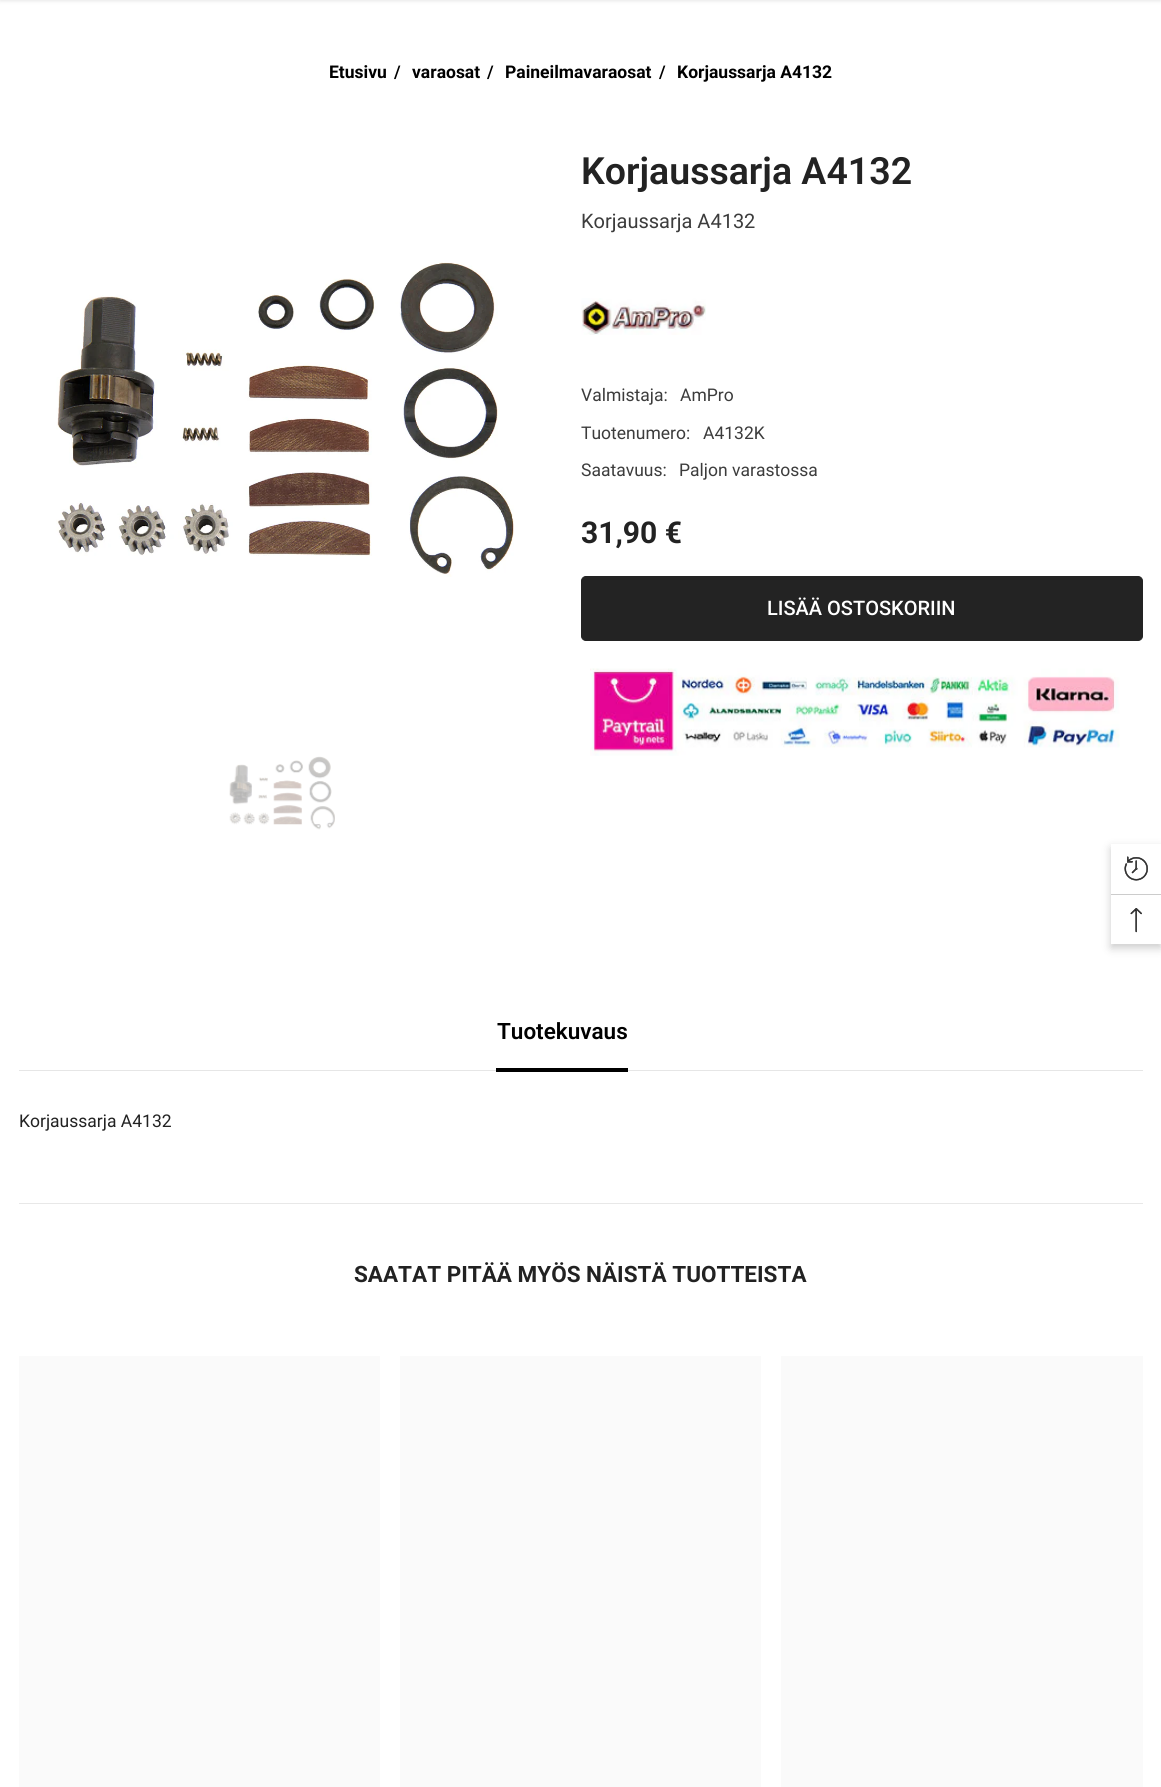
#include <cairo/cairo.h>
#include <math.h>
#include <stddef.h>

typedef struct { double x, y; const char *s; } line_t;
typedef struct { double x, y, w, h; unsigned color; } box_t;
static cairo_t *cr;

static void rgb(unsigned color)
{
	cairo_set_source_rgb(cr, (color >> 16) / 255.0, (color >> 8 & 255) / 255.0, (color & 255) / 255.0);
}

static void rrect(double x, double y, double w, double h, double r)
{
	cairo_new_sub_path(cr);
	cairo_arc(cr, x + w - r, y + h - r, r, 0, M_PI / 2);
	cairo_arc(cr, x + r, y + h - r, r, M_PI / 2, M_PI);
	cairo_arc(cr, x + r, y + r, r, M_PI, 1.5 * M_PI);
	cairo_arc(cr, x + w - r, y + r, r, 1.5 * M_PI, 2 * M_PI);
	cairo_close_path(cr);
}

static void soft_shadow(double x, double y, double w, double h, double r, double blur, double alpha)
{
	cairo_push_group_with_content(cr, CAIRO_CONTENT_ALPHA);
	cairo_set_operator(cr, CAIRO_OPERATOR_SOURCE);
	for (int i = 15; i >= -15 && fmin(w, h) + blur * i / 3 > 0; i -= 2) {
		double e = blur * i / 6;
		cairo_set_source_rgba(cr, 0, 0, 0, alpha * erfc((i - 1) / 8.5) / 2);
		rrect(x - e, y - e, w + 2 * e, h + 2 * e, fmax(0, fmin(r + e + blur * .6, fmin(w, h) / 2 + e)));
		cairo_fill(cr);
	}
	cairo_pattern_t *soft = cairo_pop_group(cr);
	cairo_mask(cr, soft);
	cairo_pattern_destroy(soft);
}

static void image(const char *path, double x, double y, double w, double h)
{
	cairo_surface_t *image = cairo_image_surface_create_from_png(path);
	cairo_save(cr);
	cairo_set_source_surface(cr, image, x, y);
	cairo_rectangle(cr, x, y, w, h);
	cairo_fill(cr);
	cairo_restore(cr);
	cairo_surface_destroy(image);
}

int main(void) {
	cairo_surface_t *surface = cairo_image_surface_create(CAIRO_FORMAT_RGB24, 1161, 1787);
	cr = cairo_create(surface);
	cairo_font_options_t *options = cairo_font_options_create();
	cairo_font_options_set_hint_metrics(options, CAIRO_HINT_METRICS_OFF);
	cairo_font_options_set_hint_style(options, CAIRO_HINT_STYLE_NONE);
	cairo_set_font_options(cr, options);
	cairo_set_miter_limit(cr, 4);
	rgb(0xffffff);
	cairo_paint(cr);
	rgb(0x000000);
	soft_shadow(0, -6, 1161, 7, 0, 2, 0.1);
	image("img/1.png", 56, 262, 458, 315);
	image("img/2.png", 229, 756, 106, 74);
	image("img/3.png", 581, 298, 125, 37);
	rgb(0x232323);
	rrect(581.5, 576.5, 561, 64, 4.5);
	cairo_fill_preserve(cr);
	cairo_set_line_width(cr, 1);
	cairo_stroke(cr);
	image("img/4.png", 590, 668, 530, 88);
	{
		static const box_t items[] = {
			{19, 1070, 1124, 1, 0xe6e6e6},
			{496, 1068, 132, 4, 0x000000},
			{19, 1203, 1124, 1, 0xe8e8e8},
			{19, 1356, 361, 431, 0xfafafa},
			{400, 1356, 361, 431, 0xfafafa},
			{781, 1356, 362, 431, 0xfafafa},
		};
		for (size_t i = 0; i < sizeof items / sizeof *items; i++) {
			rgb(items[i].color);
			cairo_rectangle(cr, items[i].x, items[i].y, items[i].w, items[i].h);
			cairo_fill(cr);
		}
	}
	rgb(0x000000);
	soft_shadow(1111, 848, 50, 100, 0, 4.5, 0.2);
	rgb(0xffffff);
	cairo_rectangle(cr, 1111, 844, 50, 100);
	cairo_fill(cr);
	image("img/5.png", 1124, 856, 24, 25);
	rgb(0xcccccc);
	cairo_rectangle(cr, 1111, 894, 50, 1);
	cairo_fill(cr);
	image("img/6.png", 1130, 908, 12, 25);
	cairo_select_font_face(cr, "Roboto", CAIRO_FONT_SLANT_NORMAL, CAIRO_FONT_WEIGHT_BOLD);
	cairo_set_font_size(cr, 17.5);
	rgb(0x000000);
	cairo_move_to(cr, 329, 78);
	cairo_show_text(cr, "Etusivu");
	cairo_select_font_face(cr, "Roboto SemiBold", CAIRO_FONT_SLANT_NORMAL, CAIRO_FONT_WEIGHT_NORMAL);
	cairo_move_to(cr, 394, 78);
	cairo_show_text(cr, "/");
	cairo_select_font_face(cr, "Roboto", CAIRO_FONT_SLANT_NORMAL, CAIRO_FONT_WEIGHT_BOLD);
	cairo_move_to(cr, 412, 78);
	cairo_show_text(cr, "varaosat");
	cairo_select_font_face(cr, "Roboto SemiBold", CAIRO_FONT_SLANT_NORMAL, CAIRO_FONT_WEIGHT_NORMAL);
	cairo_move_to(cr, 487, 78);
	cairo_show_text(cr, "/");
	cairo_select_font_face(cr, "Roboto", CAIRO_FONT_SLANT_NORMAL, CAIRO_FONT_WEIGHT_BOLD);
	cairo_move_to(cr, 505, 78);
	cairo_show_text(cr, "Paineilmavaraosat");
	cairo_select_font_face(cr, "Roboto SemiBold", CAIRO_FONT_SLANT_NORMAL, CAIRO_FONT_WEIGHT_NORMAL);
	cairo_move_to(cr, 659, 78);
	cairo_show_text(cr, "/");
	cairo_select_font_face(cr, "Roboto", CAIRO_FONT_SLANT_NORMAL, CAIRO_FONT_WEIGHT_BOLD);
	cairo_move_to(cr, 677, 78);
	cairo_show_text(cr, "Korjaussarja A4132");
	cairo_select_font_face(cr, "Roboto SemiBold", CAIRO_FONT_SLANT_NORMAL, CAIRO_FONT_WEIGHT_NORMAL);
	cairo_set_font_size(cr, 37.5);
	rgb(0x222222);
	cairo_move_to(cr, 581, 184);
	cairo_show_text(cr, "Korjaussarja A4132");
	cairo_select_font_face(cr, "Roboto", CAIRO_FONT_SLANT_NORMAL, CAIRO_FONT_WEIGHT_NORMAL);
	cairo_set_font_size(cr, 20);
	rgb(0x3c3c3c);
	cairo_move_to(cr, 581, 228);
	cairo_show_text(cr, "Korjaussarja A4132");
	cairo_set_font_size(cr, 17.5);
	{
		static const line_t items[] = {
			{581, 401, "Valmistaja:"},
			{680, 401, "AmPro"},
			{581, 439, "Tuotenumero:"},
			{703, 439, "A4132K"},
			{581, 476, "Saatavuus:"},
			{679, 476, "Paljon varastossa"},
		};
		for (size_t i = 0; i < sizeof items / sizeof *items; i++) {
			cairo_move_to(cr, items[i].x, items[i].y);
			cairo_show_text(cr, items[i].s);
		}
	}
	cairo_select_font_face(cr, "Roboto", CAIRO_FONT_SLANT_NORMAL, CAIRO_FONT_WEIGHT_BOLD);
	cairo_set_font_size(cr, 30);
	rgb(0x222222);
	cairo_move_to(cr, 581, 543);
	cairo_show_text(cr, "31,90 €");
	cairo_select_font_face(cr, "Roboto Medium", CAIRO_FONT_SLANT_NORMAL, CAIRO_FONT_WEIGHT_NORMAL);
	cairo_set_font_size(cr, 20);
	rgb(0xffffff);
	cairo_move_to(cr, 767, 615);
	cairo_show_text(cr, "LISÄÄ OSTOSKORIIN");
	cairo_select_font_face(cr, "Roboto SemiBold", CAIRO_FONT_SLANT_NORMAL, CAIRO_FONT_WEIGHT_NORMAL);
	cairo_set_font_size(cr, 22.5);
	rgb(0x000000);
	cairo_move_to(cr, 497, 1039);
	cairo_show_text(cr, "Tuotekuvaus");
	cairo_select_font_face(cr, "Roboto", CAIRO_FONT_SLANT_NORMAL, CAIRO_FONT_WEIGHT_NORMAL);
	cairo_set_font_size(cr, 17.5);
	rgb(0x222222);
	cairo_move_to(cr, 19, 1127);
	cairo_show_text(cr, "Korjaussarja A4132");
	cairo_select_font_face(cr, "Roboto", CAIRO_FONT_SLANT_NORMAL, CAIRO_FONT_WEIGHT_BOLD);
	cairo_set_font_size(cr, 22.5);
	cairo_move_to(cr, 354, 1282);
	cairo_show_text(cr, "SAATAT PITÄÄ MYÖS NÄISTÄ TUOTTEISTA");
	cairo_surface_write_to_png(surface, "page.png");
	cairo_font_options_destroy(options);
	cairo_destroy(cr);
	cairo_surface_destroy(surface);
	return 0;
}
